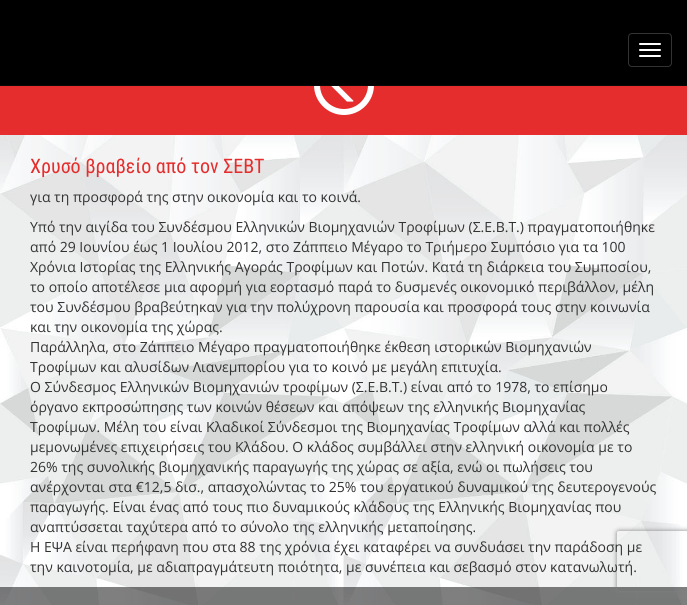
#include <cairo/cairo.h>
#include <math.h>
#include <stddef.h>

typedef struct { double x, y; const char *s; } line_t;
static cairo_t *cr;

static void rgb(unsigned color)
{
	cairo_set_source_rgb(cr, (color >> 16) / 255.0, (color >> 8 & 255) / 255.0, (color & 255) / 255.0);
}

static void rrect(double x, double y, double w, double h, double r)
{
	cairo_new_sub_path(cr);
	cairo_arc(cr, x + w - r, y + h - r, r, 0, M_PI / 2);
	cairo_arc(cr, x + r, y + h - r, r, M_PI / 2, M_PI);
	cairo_arc(cr, x + r, y + r, r, M_PI, 1.5 * M_PI);
	cairo_arc(cr, x + w - r, y + r, r, 1.5 * M_PI, 2 * M_PI);
	cairo_close_path(cr);
}

static void soft_shadow(double x, double y, double w, double h, double r, double blur, double alpha)
{
	cairo_push_group_with_content(cr, CAIRO_CONTENT_ALPHA);
	cairo_set_operator(cr, CAIRO_OPERATOR_SOURCE);
	for (int i = 15; i >= -15 && fmin(w, h) + blur * i / 3 > 0; i -= 2) {
		double e = blur * i / 6;
		cairo_set_source_rgba(cr, 0, 0, 0, alpha * erfc((i - 1) / 8.5) / 2);
		rrect(x - e, y - e, w + 2 * e, h + 2 * e, fmax(0, fmin(r + e + blur * .6, fmin(w, h) / 2 + e)));
		cairo_fill(cr);
	}
	cairo_pattern_t *soft = cairo_pop_group(cr);
	cairo_mask(cr, soft);
	cairo_pattern_destroy(soft);
}

static void image(const char *path, double x, double y, double w, double h)
{
	cairo_surface_t *image = cairo_image_surface_create_from_png(path);
	cairo_save(cr);
	cairo_set_source_surface(cr, image, x, y);
	cairo_rectangle(cr, x, y, w, h);
	cairo_fill(cr);
	cairo_restore(cr);
	cairo_surface_destroy(image);
}

int main(void) {
	cairo_surface_t *surface = cairo_image_surface_create(CAIRO_FORMAT_RGB24, 687, 605);
	cr = cairo_create(surface);
	cairo_font_options_t *options = cairo_font_options_create();
	cairo_font_options_set_hint_metrics(options, CAIRO_HINT_METRICS_OFF);
	cairo_font_options_set_hint_style(options, CAIRO_HINT_STYLE_NONE);
	cairo_set_font_options(cr, options);
	cairo_set_miter_limit(cr, 4);
	rgb(0xffffff);
	cairo_paint(cr);
	rgb(0xe52d2d);
	cairo_rectangle(cr, 0, 86, 687, 49);
	cairo_fill(cr);
	cairo_arc(cr, 344, 85, 27, 0, 2 * M_PI);
	rgb(0xffffff);
	cairo_set_line_width(cr, 6);
	cairo_stroke(cr);
	rgb(0x000000);
	cairo_rectangle(cr, 0, 0, 687, 85);
	cairo_fill(cr);
	rgb(0x080808);
	cairo_rectangle(cr, 0, 85, 687, 1);
	cairo_fill(cr);
	rrect(628.5, 33.5, 43, 33, 3.5);
	rgb(0x333333);
	cairo_set_line_width(cr, 1);
	cairo_stroke(cr);
	rgb(0xffffff);
	rrect(639, 43, 22, 2, 1);
	cairo_fill(cr);
	rrect(639, 49, 22, 2, 1);
	cairo_fill(cr);
	rrect(639, 55, 22, 2, 1);
	cairo_fill(cr);
	image("img/1.png", 0, 135, 687, 470);
	image("img/2.png", 331, 86, 23, 16);
	cairo_set_source_rgba(cr, 0, 0, 0, 0.5);
	cairo_rectangle(cr, 0, 587, 687, 18);
	cairo_fill(cr);
	cairo_save(cr);
	cairo_set_fill_rule(cr, CAIRO_FILL_RULE_EVEN_ODD);
	cairo_new_path(cr);
	cairo_move_to(cr, 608, 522);
	cairo_line_to(cr, 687, 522);
	cairo_line_to(cr, 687, 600);
	cairo_line_to(cr, 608, 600);
	cairo_close_path(cr);
	cairo_move_to(cr, 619, 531);
	cairo_line_to(cr, 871, 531);
	cairo_curve_to(cr, 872, 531, 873, 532, 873, 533);
	cairo_line_to(cr, 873, 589);
	cairo_curve_to(cr, 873, 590, 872, 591, 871, 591);
	cairo_line_to(cr, 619, 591);
	cairo_curve_to(cr, 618, 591, 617, 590, 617, 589);
	cairo_line_to(cr, 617, 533);
	cairo_curve_to(cr, 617, 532, 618, 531, 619, 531);
	cairo_close_path(cr);
	cairo_clip(cr);
	rgb(0x808080);
	soft_shadow(617, 531, 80, 60, 2, 2.5, 1);
	cairo_restore(cr);
	cairo_select_font_face(cr, "Roboto Condensed", CAIRO_FONT_SLANT_NORMAL, CAIRO_FONT_WEIGHT_NORMAL);
	cairo_set_font_size(cr, 20);
	rgb(0xe52d2d);
	cairo_move_to(cr, 30, 173);
	cairo_show_text(cr, "Χρυσό βραβείο από τον ΣΕΒΤ");
	cairo_select_font_face(cr, "Open Sans", CAIRO_FONT_SLANT_NORMAL, CAIRO_FONT_WEIGHT_NORMAL);
	cairo_set_font_size(cr, 14);
	rgb(0x333333);
	{
		static const line_t items[] = {
			{30, 202, "για τη προσφορά της στην οικονομία και το κοινά."},
			{30, 232, "Υπό την αιγίδα του Συνδέσμου Ελληνικών Βιομηχανιών Τροφίμων (Σ.Ε.Β.Τ.) πραγματοποιήθηκε"},
			{30, 252, "από 29 Ιουνίου έως 1 Ιουλίου 2012, στο Ζάππειο Μέγαρο το Τριήμερο Συμπόσιο για τα 100"},
			{30, 272, "Χρόνια Ιστορίας της Ελληνικής Αγοράς Τροφίμων και Ποτών. Κατά τη διάρκεια του Συμποσίου,"},
			{30, 292, "το οποίο αποτέλεσε μια αφορμή για εορτασμό παρά το δυσμενές οικονομικό περιβάλλον, μέλη"},
			{30, 312, "του Συνδέσμου βραβεύτηκαν για την πολύχρονη παρουσία και προσφορά τους στην κοινωνία"},
			{30, 332, "και την οικονομία της χώρας."},
			{30, 352, "Παράλληλα, στο Ζάππειο Μέγαρο πραγματοποιήθηκε έκθεση ιστορικών Βιομηχανιών"},
			{30, 372, "Τροφίμων και αλυσίδων Λιανεμπορίου για το κοινό με μεγάλη επιτυχία."},
			{30, 392, "Ο Σύνδεσμος Ελληνικών Βιομηχανιών τροφίμων (Σ.Ε.Β.Τ.) είναι από το 1978, το επίσημο"},
			{30, 412, "όργανο εκπροσώπησης των κοινών θέσεων και απόψεων της ελληνικής Βιομηχανίας"},
			{30, 432, "Τροφίμων. Μέλη του είναι Κλαδικοί Σύνδεσμοι της Βιομηχανίας Τροφίμων αλλά και πολλές"},
			{30, 452, "μεμονωμένες επιχειρήσεις του Κλάδου. Ο κλάδος συμβάλλει στην ελληνική οικονομία με το"},
			{30, 472, "26% της συνολικής βιομηχανικής παραγωγής της χώρας σε αξία, ενώ οι πωλήσεις του"},
			{30, 492, "ανέρχονται στα €12,5 δισ., απασχολώντας το 25% του εργατικού δυναμικού της δευτερογενούς"},
			{30, 512, "παραγωγής. Είναι ένας από τους πιο δυναμικούς κλάδους της Ελληνικής Βιομηχανίας που"},
			{30, 532, "αναπτύσσεται ταχύτερα από το σύνολο της ελληνικής μεταποίησης."},
			{30, 552, "Η ΕΨΑ είναι περήφανη που στα 88 της χρόνια έχει καταφέρει να συνδυάσει την παράδοση με"},
			{30, 572, "την καινοτομία, με αδιαπραγμάτευτη ποιότητα, με συνέπεια και σεβασμό στον κατανωλωτή."},
		};
		for (size_t i = 0; i < sizeof items / sizeof *items; i++) {
			cairo_move_to(cr, items[i].x, items[i].y);
			cairo_show_text(cr, items[i].s);
		}
	}
	cairo_surface_write_to_png(surface, "page.png");
	cairo_font_options_destroy(options);
	cairo_destroy(cr);
	cairo_surface_destroy(surface);
	return 0;
}
